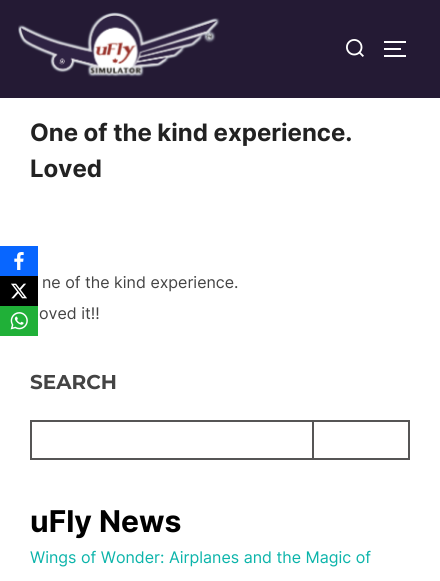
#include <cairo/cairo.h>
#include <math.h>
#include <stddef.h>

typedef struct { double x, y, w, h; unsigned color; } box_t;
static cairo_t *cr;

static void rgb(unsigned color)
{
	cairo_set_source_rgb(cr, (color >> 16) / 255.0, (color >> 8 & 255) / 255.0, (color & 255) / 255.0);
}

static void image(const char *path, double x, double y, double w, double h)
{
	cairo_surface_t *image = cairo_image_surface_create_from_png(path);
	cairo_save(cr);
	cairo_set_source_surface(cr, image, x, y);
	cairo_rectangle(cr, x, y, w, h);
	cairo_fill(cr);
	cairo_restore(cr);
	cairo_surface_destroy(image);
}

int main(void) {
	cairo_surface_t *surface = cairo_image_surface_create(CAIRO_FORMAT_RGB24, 440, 581);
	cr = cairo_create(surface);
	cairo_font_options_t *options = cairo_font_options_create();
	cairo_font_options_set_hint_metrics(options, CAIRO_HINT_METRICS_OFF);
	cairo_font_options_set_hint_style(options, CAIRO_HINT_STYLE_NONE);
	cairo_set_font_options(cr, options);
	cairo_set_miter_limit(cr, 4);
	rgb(0xffffff);
	cairo_paint(cr);
	rgb(0x0866ff);
	cairo_rectangle(cr, 0, 246, 38, 30);
	cairo_fill(cr);
	image("img/1.png", 14, 252, 10, 18);
	rgb(0x000000);
	cairo_rectangle(cr, 0, 276, 38, 30);
	cairo_fill(cr);
	image("img/2.png", 11, 283, 16, 16);
	rgb(0x20b038);
	cairo_rectangle(cr, 0, 306, 38, 30);
	cairo_fill(cr);
	image("img/3.png", 10, 312, 18, 18);
	rgb(0x241a34);
	cairo_rectangle(cr, 0, 0, 440, 98);
	cairo_fill(cr);
	image("img/4.png", 18, 12, 202, 65);
	image("img/5.png", 346, 39, 18, 18);
	{
		static const box_t items[] = {
			{384, 41, 22, 2, 0xffffff},
			{384, 48, 17, 2, 0xffffff},
			{384, 55, 22, 2, 0xffffff},
		};
		for (size_t i = 0; i < sizeof items / sizeof *items; i++) {
			rgb(items[i].color);
			cairo_rectangle(cr, items[i].x, items[i].y, items[i].w, items[i].h);
			cairo_fill(cr);
		}
	}
	cairo_rectangle(cr, 31, 421, 378, 38);
	rgb(0x565555);
	cairo_stroke(cr);
	cairo_rectangle(cr, 313, 421, 96, 38);
	cairo_stroke(cr);
	cairo_select_font_face(cr, "Inter", CAIRO_FONT_SLANT_NORMAL, CAIRO_FONT_WEIGHT_BOLD);
	cairo_set_font_size(cr, 24);
	rgb(0x222222);
	cairo_move_to(cr, 30, 141);
	cairo_show_text(cr, "One of the kind experience.");
	cairo_move_to(cr, 30, 177);
	cairo_show_text(cr, "Loved");
	cairo_select_font_face(cr, "Inter", CAIRO_FONT_SLANT_NORMAL, CAIRO_FONT_WEIGHT_NORMAL);
	cairo_set_font_size(cr, 16);
	rgb(0x444444);
	cairo_move_to(cr, 42, 288);
	cairo_show_text(cr, "ne of the kind experience.");
	cairo_move_to(cr, 39, 319);
	cairo_show_text(cr, "oved it!!");
	cairo_select_font_face(cr, "Montserrat", CAIRO_FONT_SLANT_NORMAL, CAIRO_FONT_WEIGHT_BOLD);
	cairo_set_font_size(cr, 20);
	cairo_move_to(cr, 30, 389);
	cairo_show_text(cr, "SEARCH");
	cairo_select_font_face(cr, "Inter", CAIRO_FONT_SLANT_NORMAL, CAIRO_FONT_WEIGHT_BOLD);
	cairo_set_font_size(cr, 30);
	rgb(0x000000);
	cairo_move_to(cr, 30, 532);
	cairo_show_text(cr, "uFly News");
	cairo_select_font_face(cr, "Inter", CAIRO_FONT_SLANT_NORMAL, CAIRO_FONT_WEIGHT_NORMAL);
	cairo_set_font_size(cr, 16);
	rgb(0x0bb4aa);
	cairo_move_to(cr, 30, 563);
	cairo_show_text(cr, "Wings of Wonder: Airplanes and the Magic of");
	cairo_surface_write_to_png(surface, "page.png");
	cairo_font_options_destroy(options);
	cairo_destroy(cr);
	cairo_surface_destroy(surface);
	return 0;
}
